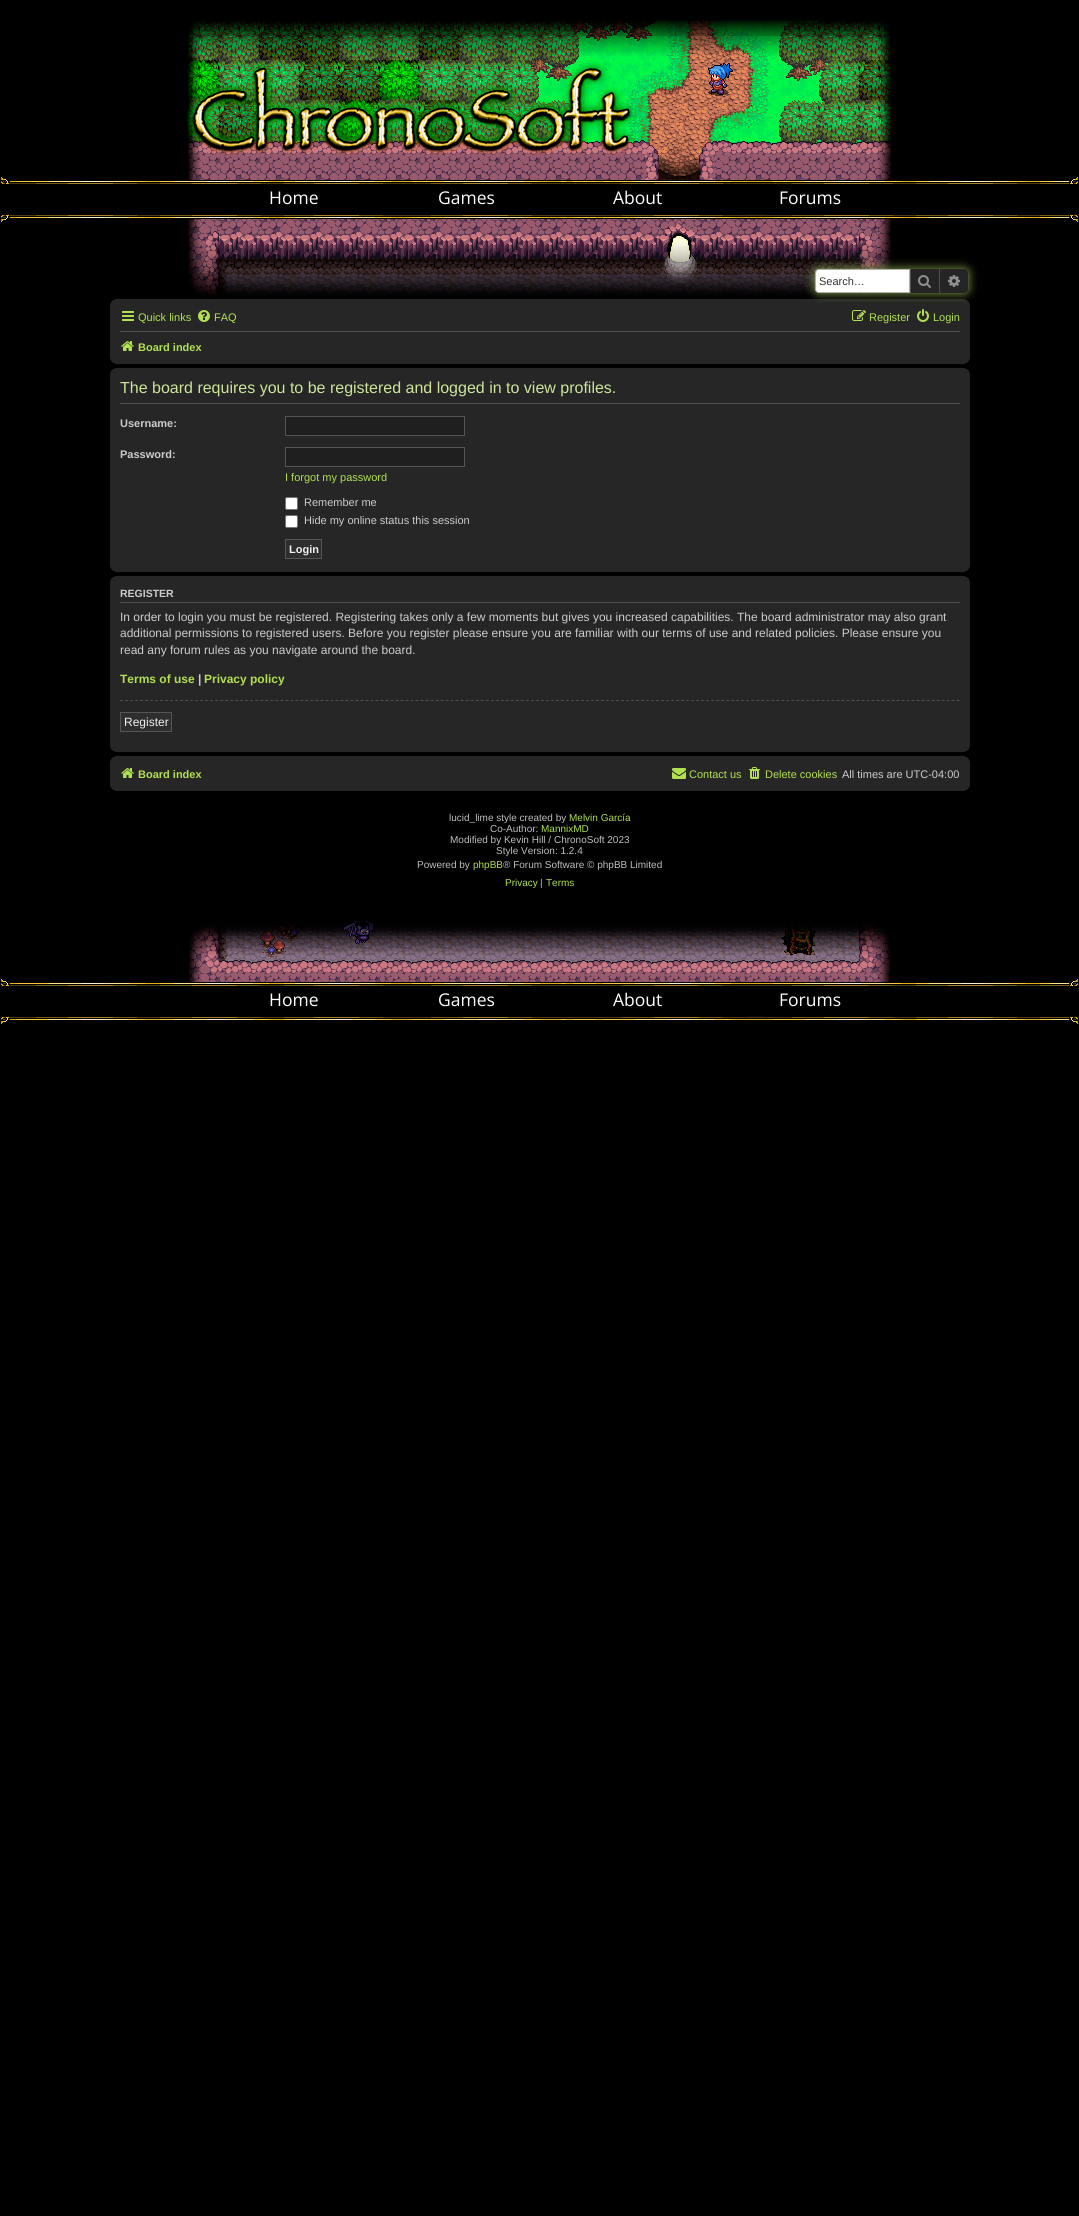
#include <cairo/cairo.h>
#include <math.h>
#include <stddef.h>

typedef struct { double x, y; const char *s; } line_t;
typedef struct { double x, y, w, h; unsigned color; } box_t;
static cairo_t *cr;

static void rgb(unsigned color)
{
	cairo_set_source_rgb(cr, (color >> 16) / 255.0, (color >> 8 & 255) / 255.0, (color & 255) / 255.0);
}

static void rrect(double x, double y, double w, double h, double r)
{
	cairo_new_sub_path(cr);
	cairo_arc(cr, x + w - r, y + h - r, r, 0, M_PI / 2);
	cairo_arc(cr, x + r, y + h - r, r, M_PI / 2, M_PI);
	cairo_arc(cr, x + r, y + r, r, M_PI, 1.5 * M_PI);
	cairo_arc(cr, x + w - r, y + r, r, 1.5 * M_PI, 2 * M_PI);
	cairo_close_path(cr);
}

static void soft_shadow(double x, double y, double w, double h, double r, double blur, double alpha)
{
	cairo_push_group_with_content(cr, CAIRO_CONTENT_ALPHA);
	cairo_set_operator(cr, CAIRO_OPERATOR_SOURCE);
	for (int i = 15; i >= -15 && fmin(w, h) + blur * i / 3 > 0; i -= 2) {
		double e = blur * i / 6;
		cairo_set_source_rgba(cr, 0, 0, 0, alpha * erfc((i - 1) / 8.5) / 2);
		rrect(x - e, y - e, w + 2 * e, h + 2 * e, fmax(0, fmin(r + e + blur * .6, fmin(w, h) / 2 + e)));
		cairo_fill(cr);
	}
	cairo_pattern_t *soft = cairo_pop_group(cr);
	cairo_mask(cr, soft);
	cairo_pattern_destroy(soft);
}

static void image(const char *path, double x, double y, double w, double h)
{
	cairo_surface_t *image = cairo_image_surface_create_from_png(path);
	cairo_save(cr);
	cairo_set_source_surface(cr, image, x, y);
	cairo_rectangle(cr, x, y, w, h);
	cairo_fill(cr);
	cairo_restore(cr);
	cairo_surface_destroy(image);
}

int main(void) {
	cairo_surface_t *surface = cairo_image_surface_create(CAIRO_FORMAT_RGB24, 1079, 2216);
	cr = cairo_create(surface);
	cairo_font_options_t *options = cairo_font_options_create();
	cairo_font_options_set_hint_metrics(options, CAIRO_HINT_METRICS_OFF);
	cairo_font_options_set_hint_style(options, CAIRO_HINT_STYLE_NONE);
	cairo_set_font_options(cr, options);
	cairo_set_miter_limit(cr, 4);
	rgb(0x000000);
	cairo_paint(cr);
	image("img/1.png", 186, 20, 706, 160);
	image("img/2.png", 0, 177, 10, 45);
	image("img/3.png", 10, 181, 1059, 37);
	image("img/4.png", 1069, 177, 10, 45);
	image("img/5.png", 188, 219, 704, 78);
	rgb(0x262626);
	rrect(110, 299, 860, 65, 7);
	cairo_fill(cr);
	rgb(0x8caa54);
	soft_shadow(815, 269, 153, 24, 4, 5, 1);
	rgb(0xffffff);
	cairo_new_path(cr);
	cairo_move_to(cr, 819, 269.5);
	cairo_line_to(cr, 909.5, 269.5);
	cairo_line_to(cr, 909.5, 292.5);
	cairo_line_to(cr, 819, 292.5);
	cairo_curve_to(cr, 817, 292.5, 815.5, 291, 815.5, 289);
	cairo_line_to(cr, 815.5, 273);
	cairo_curve_to(cr, 815.5, 271, 817, 269.5, 819, 269.5);
	cairo_close_path(cr);
	cairo_fill_preserve(cr);
	rgb(0xb0b0b0);
	cairo_set_line_width(cr, 1);
	cairo_stroke(cr);
	{
		static const box_t items[] = {
			{911, 269, 28, 24, 0x252525},
			{939, 269, 1, 24, 0x4f4f4f},
			{910, 269, 1, 24, 0x4f4f4f},
		};
		for (size_t i = 0; i < sizeof items / sizeof *items; i++) {
			rgb(items[i].color);
			cairo_rectangle(cr, items[i].x, items[i].y, items[i].w, items[i].h);
			cairo_fill(cr);
		}
	}
	image("img/6.png", 918, 275, 13, 13);
	rgb(0x252525);
	cairo_new_path(cr);
	cairo_move_to(cr, 940, 269);
	cairo_line_to(cr, 964, 269);
	cairo_curve_to(cr, 966, 269, 968, 271, 968, 273);
	cairo_line_to(cr, 968, 289);
	cairo_curve_to(cr, 968, 291, 966, 293, 964, 293);
	cairo_line_to(cr, 940, 293);
	cairo_close_path(cr);
	cairo_fill(cr);
	image("img/7.png", 948, 275, 12, 12);
	image("img/8.png", 122, 311, 12, 10);
	image("img/9.png", 198, 310, 12, 12);
	image("img/10.png", 852, 310, 14, 11);
	image("img/11.png", 917, 309, 12, 13);
	rgb(0x4f4f4f);
	cairo_rectangle(cr, 120, 331, 840, 1);
	cairo_fill(cr);
	image("img/12.png", 121, 341, 13, 10);
	rgb(0x262626);
	rrect(110, 368, 860, 204, 7);
	cairo_fill(cr);
	rgb(0x4f4f4f);
	cairo_rectangle(cr, 120, 403, 840, 1);
	cairo_fill(cr);
	rgb(0x1f1f1f);
	cairo_rectangle(cr, 285.5, 416.5, 179, 19);
	cairo_fill_preserve(cr);
	rgb(0x555555);
	cairo_stroke(cr);
	rgb(0x1f1f1f);
	cairo_rectangle(cr, 285.5, 447.5, 179, 19);
	cairo_fill_preserve(cr);
	rgb(0x555555);
	cairo_stroke(cr);
	rgb(0xffffff);
	rrect(285.5, 497.5, 12, 12, 1.5);
	cairo_fill_preserve(cr);
	rgb(0x767676);
	cairo_stroke(cr);
	rgb(0xffffff);
	rrect(285.5, 515.5, 12, 12, 1.5);
	cairo_fill_preserve(cr);
	rgb(0x767676);
	cairo_stroke(cr);
	rgb(0x2e2e2e);
	cairo_rectangle(cr, 285.5, 539.5, 36, 19);
	cairo_fill_preserve(cr);
	rgb(0x555555);
	cairo_stroke(cr);
	rgb(0x262626);
	rrect(110, 576, 860, 176, 7);
	cairo_fill(cr);
	rgb(0x4f4f4f);
	cairo_rectangle(cr, 120, 602, 840, 1);
	cairo_fill(cr);
	cairo_new_path(cr);
	cairo_move_to(cr, 120, 700.5);
	cairo_line_to(cr, 960, 700.5);
	cairo_set_dash(cr, (double[]){3, 2.01}, 2, 0);
	cairo_stroke(cr);
	rgb(0x2e2e2e);
	cairo_rectangle(cr, 120.5, 712.5, 51, 19);
	cairo_fill_preserve(cr);
	rgb(0x555555);
	cairo_set_dash(cr, NULL, 0, 0);
	cairo_stroke(cr);
	rgb(0x262626);
	rrect(110, 756, 860, 35, 7);
	cairo_fill(cr);
	image("img/12.png", 121, 768, 13, 10);
	image("img/13.png", 672, 768, 14, 11);
	image("img/14.png", 749, 767, 11, 12);
	image("img/15.png", 189, 921, 702, 61);
	image("img/2.png", 0, 979, 10, 45);
	image("img/3.png", 10, 983, 1059, 37);
	image("img/4.png", 1069, 979, 10, 45);
	cairo_select_font_face(cr, "Open Sans", CAIRO_FONT_SLANT_NORMAL, CAIRO_FONT_WEIGHT_NORMAL);
	cairo_set_font_size(cr, 17.5);
	rgb(0xffffff);
	{
		static const line_t items[] = {
			{269, 204, "Home"},
			{438, 204, "Games"},
			{613, 204, "About"},
			{779, 204, "Forums"},
		};
		for (size_t i = 0; i < sizeof items / sizeof *items; i++) {
			cairo_move_to(cr, items[i].x, items[i].y);
			cairo_show_text(cr, items[i].s);
		}
	}
	cairo_select_font_face(cr, "Liberation Sans", CAIRO_FONT_SLANT_NORMAL, CAIRO_FONT_WEIGHT_NORMAL);
	cairo_set_font_size(cr, 11);
	rgb(0x333333);
	cairo_move_to(cr, 819, 285);
	cairo_show_text(cr, "Search…");
	rgb(0xb1e051);
	{
		static const line_t items[] = {
			{138, 321, "Quick links"},
			{214, 321, "FAQ"},
			{869, 321, "Register"},
			{933, 321, "Login"},
		};
		for (size_t i = 0; i < sizeof items / sizeof *items; i++) {
			cairo_move_to(cr, items[i].x, items[i].y);
			cairo_show_text(cr, items[i].s);
		}
	}
	cairo_select_font_face(cr, "Liberation Sans", CAIRO_FONT_SLANT_NORMAL, CAIRO_FONT_WEIGHT_BOLD);
	cairo_move_to(cr, 138, 351);
	cairo_show_text(cr, "Board index");
	cairo_select_font_face(cr, "Liberation Sans", CAIRO_FONT_SLANT_NORMAL, CAIRO_FONT_WEIGHT_NORMAL);
	cairo_set_font_size(cr, 16);
	rgb(0xcce59a);
	cairo_move_to(cr, 120, 393);
	cairo_show_text(cr, "The board requires you to be registered and logged in to view profiles.");
	cairo_select_font_face(cr, "Liberation Sans", CAIRO_FONT_SLANT_NORMAL, CAIRO_FONT_WEIGHT_BOLD);
	cairo_set_font_size(cr, 11);
	rgb(0xcccccc);
	cairo_move_to(cr, 120, 427);
	cairo_show_text(cr, "Username:");
	cairo_move_to(cr, 120, 458);
	cairo_show_text(cr, "Password:");
	cairo_select_font_face(cr, "Liberation Sans", CAIRO_FONT_SLANT_NORMAL, CAIRO_FONT_WEIGHT_NORMAL);
	rgb(0xb1e051);
	cairo_move_to(cr, 285, 481);
	cairo_show_text(cr, "I forgot my password");
	rgb(0xcccccc);
	cairo_move_to(cr, 304, 506);
	cairo_show_text(cr, "Remember me");
	cairo_move_to(cr, 304, 524);
	cairo_show_text(cr, "Hide my online status this session");
	cairo_select_font_face(cr, "Liberation Sans", CAIRO_FONT_SLANT_NORMAL, CAIRO_FONT_WEIGHT_BOLD);
	rgb(0xf0f0f0);
	cairo_move_to(cr, 289, 553);
	cairo_show_text(cr, "Login");
	cairo_set_font_size(cr, 10.5);
	rgb(0xcccccc);
	cairo_move_to(cr, 120, 597);
	cairo_show_text(cr, "REGISTER");
	cairo_select_font_face(cr, "Liberation Sans", CAIRO_FONT_SLANT_NORMAL, CAIRO_FONT_WEIGHT_NORMAL);
	cairo_set_font_size(cr, 12);
	{
		static const line_t items[] = {
			{120, 621, "In order to login you must be registered. Registering takes only a few moments but gives you increased capabilities. The board administrator may also grant"},
			{120, 637, "additional permissions to registered users. Before you register please ensure you are familiar with our terms of use and related policies. Please ensure you"},
			{120, 654, "read any forum rules as you navigate around the board."},
		};
		for (size_t i = 0; i < sizeof items / sizeof *items; i++) {
			cairo_move_to(cr, items[i].x, items[i].y);
			cairo_show_text(cr, items[i].s);
		}
	}
	cairo_select_font_face(cr, "Liberation Sans", CAIRO_FONT_SLANT_NORMAL, CAIRO_FONT_WEIGHT_BOLD);
	rgb(0xb1e051);
	cairo_move_to(cr, 120, 683);
	cairo_show_text(cr, "Terms of use");
	rgb(0xcccccc);
	cairo_move_to(cr, 198, 683);
	cairo_show_text(cr, "|");
	rgb(0xb1e051);
	cairo_move_to(cr, 204, 683);
	cairo_show_text(cr, "Privacy policy");
	cairo_select_font_face(cr, "Liberation Sans", CAIRO_FONT_SLANT_NORMAL, CAIRO_FONT_WEIGHT_NORMAL);
	rgb(0xf0f0f0);
	cairo_move_to(cr, 124, 726);
	cairo_show_text(cr, "Register");
	cairo_select_font_face(cr, "Liberation Sans", CAIRO_FONT_SLANT_NORMAL, CAIRO_FONT_WEIGHT_BOLD);
	cairo_set_font_size(cr, 11);
	rgb(0xb1e051);
	cairo_move_to(cr, 138, 778);
	cairo_show_text(cr, "Board index");
	cairo_select_font_face(cr, "Liberation Sans", CAIRO_FONT_SLANT_NORMAL, CAIRO_FONT_WEIGHT_NORMAL);
	cairo_move_to(cr, 689, 778);
	cairo_show_text(cr, "Contact us");
	cairo_move_to(cr, 765, 778);
	cairo_show_text(cr, "Delete cookies");
	rgb(0xcccccc);
	cairo_move_to(cr, 842, 778);
	cairo_show_text(cr, "All times are UTC-04:00");
	cairo_set_font_size(cr, 10);
	rgb(0xbfbfbf);
	cairo_move_to(cr, 449, 821);
	cairo_show_text(cr, "lucid_lime style created by");
	rgb(0xb1e051);
	cairo_move_to(cr, 569, 821);
	cairo_show_text(cr, "Melvin García");
	rgb(0xbfbfbf);
	cairo_move_to(cr, 490, 832);
	cairo_show_text(cr, "Co-Author:");
	rgb(0xb1e051);
	cairo_move_to(cr, 541, 832);
	cairo_show_text(cr, "MannixMD");
	rgb(0xbfbfbf);
	{
		static const line_t items[] = {
			{450, 843, "Modified by Kevin Hill / ChronoSoft 2023"},
			{496, 854, "Style Version: 1.2.4"},
			{417, 868, "Powered by"},
		};
		for (size_t i = 0; i < sizeof items / sizeof *items; i++) {
			cairo_move_to(cr, items[i].x, items[i].y);
			cairo_show_text(cr, items[i].s);
		}
	}
	rgb(0xb1e051);
	cairo_move_to(cr, 473, 868);
	cairo_show_text(cr, "phpBB");
	rgb(0xbfbfbf);
	cairo_move_to(cr, 503, 868);
	cairo_show_text(cr, "® Forum Software © phpBB Limited");
	rgb(0xb1e051);
	cairo_move_to(cr, 505, 886);
	cairo_show_text(cr, "Privacy");
	rgb(0xbfbfbf);
	cairo_move_to(cr, 540, 886);
	cairo_show_text(cr, "|");
	rgb(0xb1e051);
	cairo_move_to(cr, 546, 886);
	cairo_show_text(cr, "Terms");
	cairo_select_font_face(cr, "Open Sans", CAIRO_FONT_SLANT_NORMAL, CAIRO_FONT_WEIGHT_NORMAL);
	cairo_set_font_size(cr, 17.5);
	rgb(0xffffff);
	{
		static const line_t items[] = {
			{269, 1006, "Home"},
			{438, 1006, "Games"},
			{613, 1006, "About"},
			{779, 1006, "Forums"},
		};
		for (size_t i = 0; i < sizeof items / sizeof *items; i++) {
			cairo_move_to(cr, items[i].x, items[i].y);
			cairo_show_text(cr, items[i].s);
		}
	}
	cairo_surface_write_to_png(surface, "page.png");
	cairo_font_options_destroy(options);
	cairo_destroy(cr);
	cairo_surface_destroy(surface);
	return 0;
}
